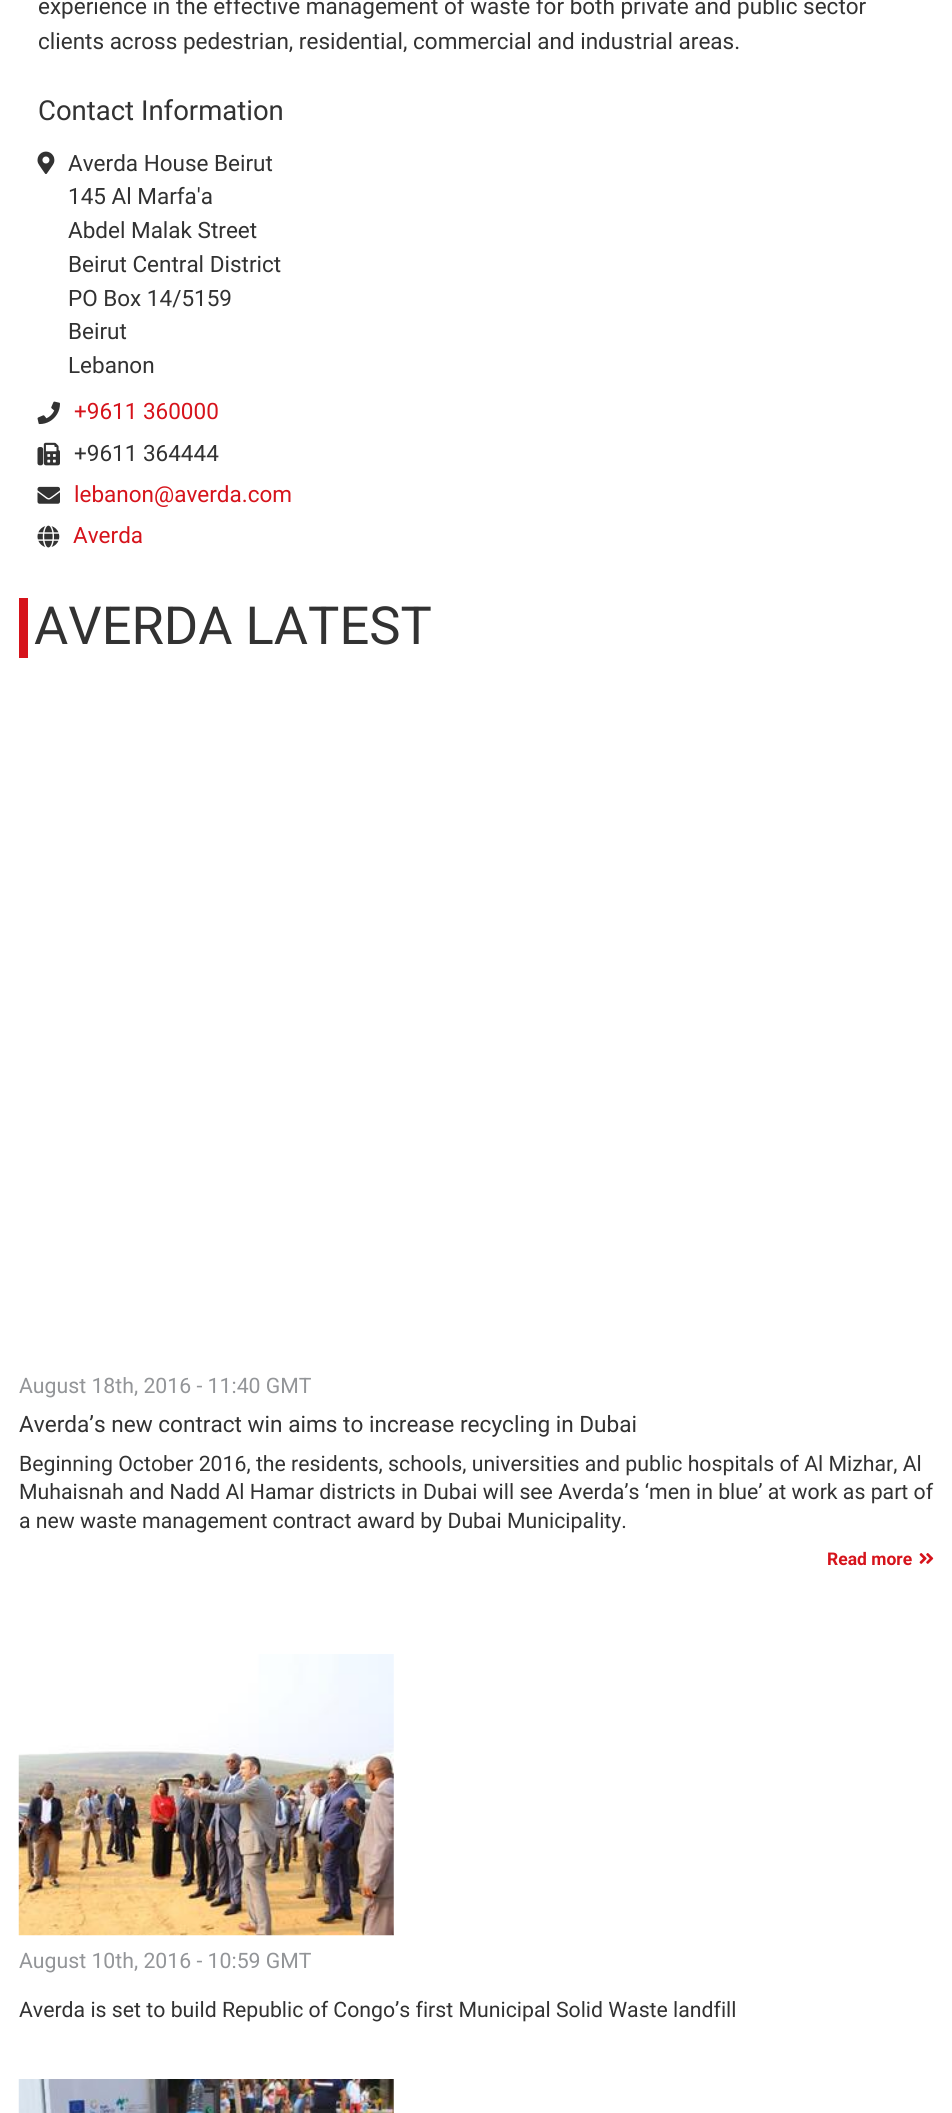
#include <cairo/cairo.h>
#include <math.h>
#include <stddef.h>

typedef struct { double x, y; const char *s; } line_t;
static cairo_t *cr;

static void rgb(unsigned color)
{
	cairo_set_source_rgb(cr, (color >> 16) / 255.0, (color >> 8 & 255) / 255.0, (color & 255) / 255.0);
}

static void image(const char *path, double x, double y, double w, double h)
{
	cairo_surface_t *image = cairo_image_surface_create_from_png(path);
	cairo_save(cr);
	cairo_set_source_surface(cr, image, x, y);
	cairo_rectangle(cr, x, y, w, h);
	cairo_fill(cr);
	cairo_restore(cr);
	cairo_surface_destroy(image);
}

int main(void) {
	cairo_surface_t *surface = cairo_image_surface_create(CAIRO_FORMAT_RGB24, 952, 2113);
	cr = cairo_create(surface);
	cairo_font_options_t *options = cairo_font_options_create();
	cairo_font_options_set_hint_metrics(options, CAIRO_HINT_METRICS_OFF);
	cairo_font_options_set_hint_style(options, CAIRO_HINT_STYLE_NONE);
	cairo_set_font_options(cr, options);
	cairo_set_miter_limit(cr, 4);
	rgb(0xffffff);
	cairo_paint(cr);
	image("img/1.png", 37, 151, 18, 23);
	image("img/2.png", 37, 401, 23, 24);
	image("img/3.png", 37, 442, 23, 24);
	image("img/4.png", 37, 486, 23, 18);
	image("img/5.png", 37, 525, 23, 23);
	rgb(0xd6131b);
	cairo_rectangle(cr, 19, 598, 9, 60);
	cairo_fill(cr);
	image("img/6.png", 919, 1553, 15, 11);
	image("img/7.png", 18, 1654, 376, 282);
	image("img/8.png", 18, 2079, 376, 34);
	cairo_select_font_face(cr, "Roboto", CAIRO_FONT_SLANT_NORMAL, CAIRO_FONT_WEIGHT_NORMAL);
	cairo_set_font_size(cr, 22.5);
	rgb(0x323232);
	cairo_move_to(cr, 38, 14);
	cairo_show_text(cr, "experience in the effective management of waste for both private and public sector");
	cairo_move_to(cr, 38, 49);
	cairo_show_text(cr, "clients across pedestrian, residential, commercial and industrial areas.");
	cairo_set_font_size(cr, 27.5);
	cairo_move_to(cr, 38, 120);
	cairo_show_text(cr, "Contact Information");
	cairo_set_font_size(cr, 22.5);
	{
		static const line_t items[] = {
			{68, 171, "Averda House Beirut"},
			{68, 204, "145 Al Marfa'a"},
			{68, 238, "Abdel Malak Street"},
			{68, 272, "Beirut Central District"},
			{68, 306, "PO Box 14/5159"},
			{68, 339, "Beirut"},
			{68, 373, "Lebanon"},
		};
		for (size_t i = 0; i < sizeof items / sizeof *items; i++) {
			cairo_move_to(cr, items[i].x, items[i].y);
			cairo_show_text(cr, items[i].s);
		}
	}
	rgb(0xd6131b);
	cairo_move_to(cr, 74, 419);
	cairo_show_text(cr, "+9611 360000");
	rgb(0x323232);
	cairo_move_to(cr, 74, 461);
	cairo_show_text(cr, "+9611 364444");
	rgb(0xd6131b);
	cairo_move_to(cr, 74, 502);
	cairo_show_text(cr, "lebanon@averda.com");
	cairo_move_to(cr, 73, 543);
	cairo_show_text(cr, "Averda");
	cairo_set_font_size(cr, 52.5);
	rgb(0x323232);
	cairo_move_to(cr, 34, 644);
	cairo_show_text(cr, "AVERDA LATEST");
	cairo_set_font_size(cr, 21.25);
	rgb(0x939598);
	cairo_move_to(cr, 19, 1393);
	cairo_show_text(cr, "August 18th, 2016 - 11:40 GMT");
	cairo_set_font_size(cr, 22.6);
	rgb(0x323232);
	cairo_move_to(cr, 19, 1432);
	cairo_show_text(cr, "Averda’s new contract win aims to increase recycling in Dubai");
	cairo_set_font_size(cr, 21.25);
	{
		static const line_t items[] = {
			{19, 1471, "Beginning October 2016, the residents, schools, universities and public hospitals of Al Mizhar, Al"},
			{19, 1499, "Muhaisnah and Nadd Al Hamar districts in Dubai will see Averda’s ‘men in blue’ at work as part of"},
			{19, 1528, "a new waste management contract award by Dubai Municipality."},
		};
		for (size_t i = 0; i < sizeof items / sizeof *items; i++) {
			cairo_move_to(cr, items[i].x, items[i].y);
			cairo_show_text(cr, items[i].s);
		}
	}
	cairo_select_font_face(cr, "Roboto", CAIRO_FONT_SLANT_NORMAL, CAIRO_FONT_WEIGHT_BOLD);
	cairo_set_font_size(cr, 17.5);
	rgb(0xd6131b);
	cairo_move_to(cr, 827, 1565);
	cairo_show_text(cr, "Read more");
	cairo_select_font_face(cr, "Roboto", CAIRO_FONT_SLANT_NORMAL, CAIRO_FONT_WEIGHT_NORMAL);
	cairo_set_font_size(cr, 21.25);
	rgb(0x939598);
	cairo_move_to(cr, 19, 1968);
	cairo_show_text(cr, "August 10th, 2016 - 10:59 GMT");
	rgb(0x323232);
	cairo_move_to(cr, 19, 2017);
	cairo_show_text(cr, "Averda is set to build Republic of Congo’s first Municipal Solid Waste landfill");
	cairo_surface_write_to_png(surface, "page.png");
	cairo_font_options_destroy(options);
	cairo_destroy(cr);
	cairo_surface_destroy(surface);
	return 0;
}
